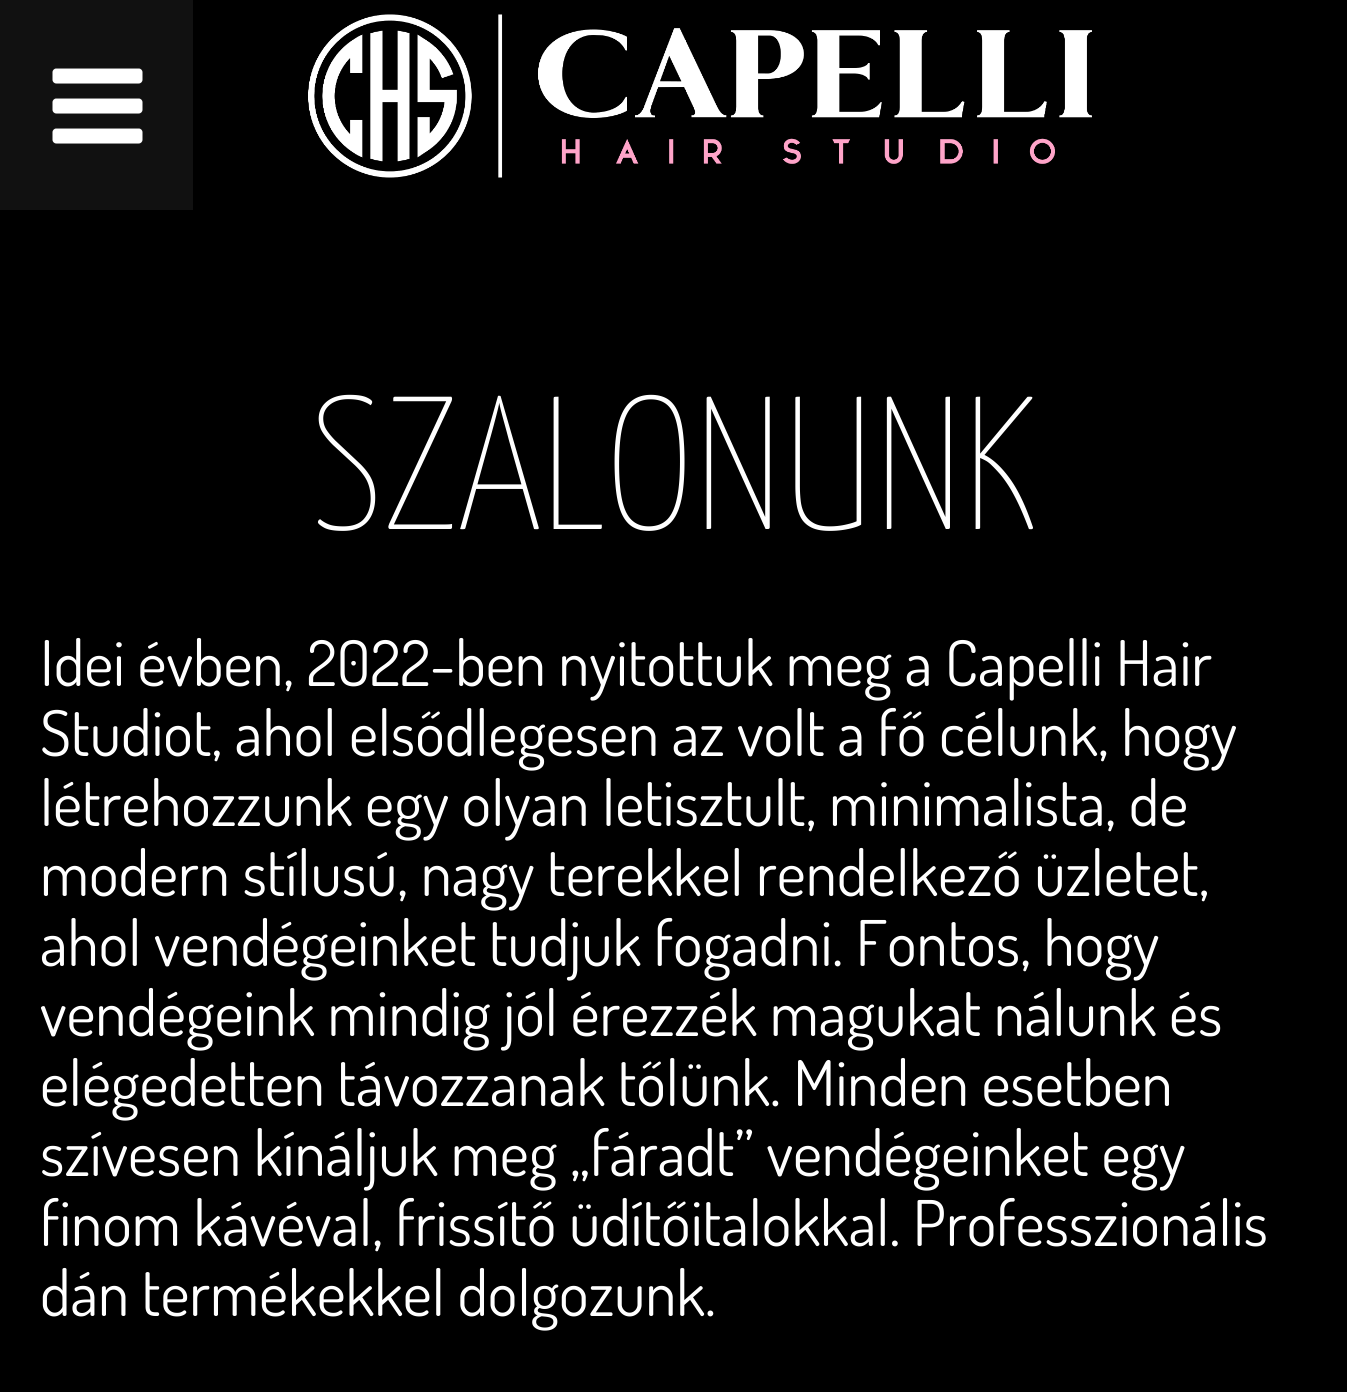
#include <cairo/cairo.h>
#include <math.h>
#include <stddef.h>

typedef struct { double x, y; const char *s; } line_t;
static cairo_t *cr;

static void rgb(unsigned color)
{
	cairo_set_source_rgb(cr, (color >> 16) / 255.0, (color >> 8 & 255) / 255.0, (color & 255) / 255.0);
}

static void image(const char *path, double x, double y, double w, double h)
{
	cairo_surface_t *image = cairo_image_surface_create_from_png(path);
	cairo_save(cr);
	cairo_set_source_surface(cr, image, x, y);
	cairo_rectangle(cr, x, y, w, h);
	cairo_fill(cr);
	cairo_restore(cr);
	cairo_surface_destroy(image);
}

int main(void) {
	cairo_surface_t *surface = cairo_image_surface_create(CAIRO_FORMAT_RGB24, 1347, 1392);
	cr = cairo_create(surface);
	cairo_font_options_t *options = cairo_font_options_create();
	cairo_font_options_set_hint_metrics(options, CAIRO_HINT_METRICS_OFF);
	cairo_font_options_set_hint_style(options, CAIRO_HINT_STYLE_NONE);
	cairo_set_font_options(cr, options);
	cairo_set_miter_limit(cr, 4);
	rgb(0x000000);
	cairo_paint(cr);
	rgb(0x111111);
	cairo_rectangle(cr, 0, 0, 193, 210);
	cairo_fill(cr);
	image("img/1.png", 52, 68, 91, 76);
	image("img/2.png", 308, 14, 784, 164);
	cairo_select_font_face(cr, "Yanone Kaffeesatz ExtraLight", CAIRO_FONT_SLANT_NORMAL, CAIRO_FONT_WEIGHT_NORMAL);
	cairo_set_font_size(cr, 189);
	rgb(0xffffff);
	cairo_move_to(cr, 310, 529);
	cairo_show_text(cr, "SZALONUNK");
	cairo_select_font_face(cr, "Dosis", CAIRO_FONT_SLANT_NORMAL, CAIRO_FONT_WEIGHT_NORMAL);
	cairo_set_font_size(cr, 63);
	{
		static const line_t items[] = {
			{40, 686, "Idei évben, 2022-ben nyitottuk meg a Capelli Hair"},
			{40, 756, "Studiot, ahol elsődlegesen az volt a fő célunk, hogy"},
			{40, 826, "létrehozzunk egy olyan letisztult, minimalista, de"},
			{40, 896, "modern stílusú, nagy terekkel rendelkező üzletet,"},
			{40, 966, "ahol vendégeinket tudjuk fogadni. Fontos, hogy"},
			{40, 1036, "vendégeink mindig jól érezzék magukat nálunk és"},
			{40, 1106, "elégedetten távozzanak tőlünk. Minden esetben"},
			{40, 1176, "szívesen kínáljuk meg „fáradt” vendégeinket egy"},
			{40, 1246, "finom kávéval, frissítő üdítőitalokkal. Professzionális"},
			{40, 1316, "dán termékekkel dolgozunk."},
		};
		for (size_t i = 0; i < sizeof items / sizeof *items; i++) {
			cairo_move_to(cr, items[i].x, items[i].y);
			cairo_show_text(cr, items[i].s);
		}
	}
	cairo_surface_write_to_png(surface, "page.png");
	cairo_font_options_destroy(options);
	cairo_destroy(cr);
	cairo_surface_destroy(surface);
	return 0;
}
